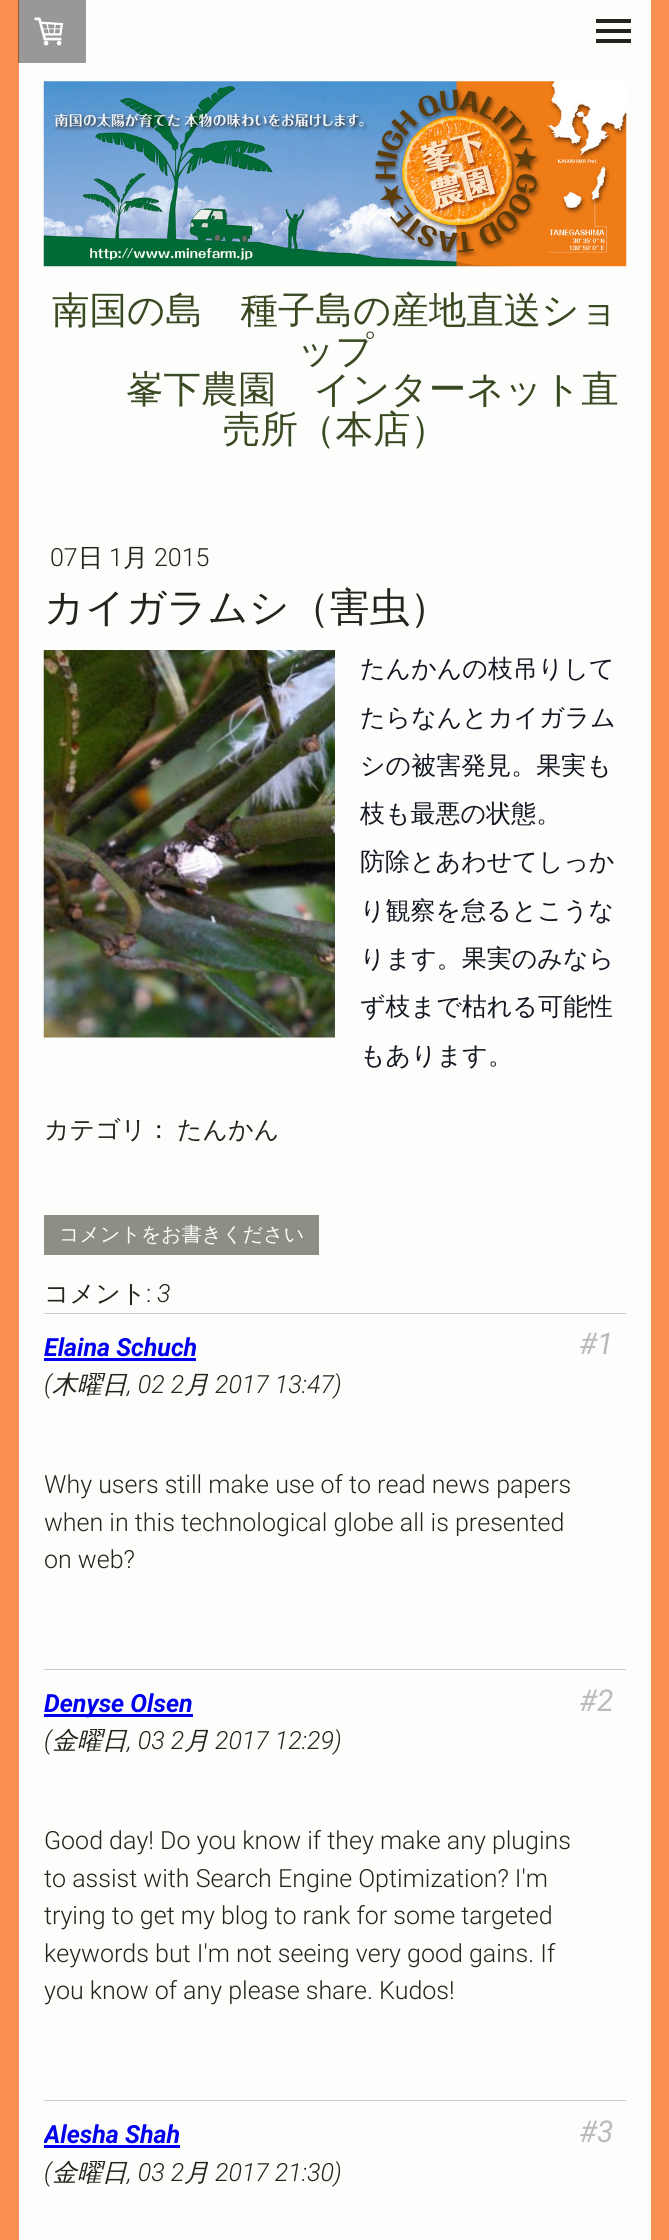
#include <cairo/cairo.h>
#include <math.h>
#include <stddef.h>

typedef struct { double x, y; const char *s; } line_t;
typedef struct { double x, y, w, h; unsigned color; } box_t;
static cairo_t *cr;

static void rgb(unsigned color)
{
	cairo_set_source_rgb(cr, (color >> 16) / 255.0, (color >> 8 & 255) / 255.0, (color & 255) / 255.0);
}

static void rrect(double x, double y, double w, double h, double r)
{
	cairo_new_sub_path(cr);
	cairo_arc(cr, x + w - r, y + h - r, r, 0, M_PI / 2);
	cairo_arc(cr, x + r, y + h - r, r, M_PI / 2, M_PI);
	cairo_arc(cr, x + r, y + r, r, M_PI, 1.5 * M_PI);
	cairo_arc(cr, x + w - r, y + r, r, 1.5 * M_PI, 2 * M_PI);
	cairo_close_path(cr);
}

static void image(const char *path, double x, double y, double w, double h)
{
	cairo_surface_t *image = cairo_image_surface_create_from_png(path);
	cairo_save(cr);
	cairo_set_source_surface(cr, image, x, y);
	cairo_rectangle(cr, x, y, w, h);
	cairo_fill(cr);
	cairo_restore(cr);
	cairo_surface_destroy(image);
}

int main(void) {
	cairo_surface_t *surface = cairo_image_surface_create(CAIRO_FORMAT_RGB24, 669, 2240);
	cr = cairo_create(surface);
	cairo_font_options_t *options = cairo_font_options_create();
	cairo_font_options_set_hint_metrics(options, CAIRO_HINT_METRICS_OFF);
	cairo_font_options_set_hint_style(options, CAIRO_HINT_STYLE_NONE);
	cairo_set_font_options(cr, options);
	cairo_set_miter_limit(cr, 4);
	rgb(0xfc9053);
	cairo_paint(cr);
	rgb(0xfdfdfc);
	cairo_rectangle(cr, 19, 0, 632, 2240);
	cairo_fill(cr);
	cairo_set_source_rgba(cr, 0, 0, 0, 0.4);
	rrect(18, 0, 68, 63, 1);
	cairo_fill(cr);
	image("img/1.png", 34, 17, 30, 29);
	{
		static const box_t items[] = {
			{596, 29, 35, 4, 0x22251e},
			{596, 19, 35, 4, 0x22251e},
			{596, 39, 35, 4, 0x22251e},
		};
		for (size_t i = 0; i < sizeof items / sizeof *items; i++) {
			rgb(items[i].color);
			cairo_rectangle(cr, items[i].x, items[i].y, items[i].w, items[i].h);
			cairo_fill(cr);
		}
	}
	image("img/2.png", 43, 81, 584, 186);
	image("img/3.png", 43, 650, 292, 388);
	{
		static const box_t items[] = {
			{44, 1215, 275, 40, 0x8b8f84},
			{44, 1313, 582, 1, 0xcccccc},
			{44, 1358, 152, 3, 0x0000ee},
			{44, 1669, 582, 1, 0xcccccc},
			{44, 1714, 149, 3, 0x0000ee},
			{44, 2100, 582, 1, 0xcccccc},
			{44, 2145, 136, 3, 0x0000ee},
		};
		for (size_t i = 0; i < sizeof items / sizeof *items; i++) {
			rgb(items[i].color);
			cairo_rectangle(cr, items[i].x, items[i].y, items[i].w, items[i].h);
			cairo_fill(cr);
		}
	}
	cairo_select_font_face(cr, "WenQuanYi Zen Hei Medium", CAIRO_FONT_SLANT_NORMAL, CAIRO_FONT_WEIGHT_NORMAL);
	cairo_set_font_size(cr, 37.5);
	rgb(0x394922);
	{
		static const line_t items[] = {
			{52, 323, "南国の島　種子島の産地直送ショ"},
			{297, 363, "ップ"},
			{126, 402, "峯下農園　インターネット直"},
			{223, 442, "売所（本店）"},
		};
		for (size_t i = 0; i < sizeof items / sizeof *items; i++) {
			cairo_move_to(cr, items[i].x, items[i].y);
			cairo_show_text(cr, items[i].s);
		}
	}
	cairo_select_font_face(cr, "Roboto Light", CAIRO_FONT_SLANT_NORMAL, CAIRO_FONT_WEIGHT_NORMAL);
	cairo_set_font_size(cr, 25);
	rgb(0x22251e);
	cairo_move_to(cr, 50, 566);
	cairo_show_text(cr, "07");
	cairo_select_font_face(cr, "WenQuanYi Zen Hei Medium", CAIRO_FONT_SLANT_NORMAL, CAIRO_FONT_WEIGHT_NORMAL);
	cairo_move_to(cr, 78, 566);
	cairo_show_text(cr, "日");
	cairo_select_font_face(cr, "Roboto Light", CAIRO_FONT_SLANT_NORMAL, CAIRO_FONT_WEIGHT_NORMAL);
	cairo_move_to(cr, 109, 566);
	cairo_show_text(cr, "1");
	cairo_select_font_face(cr, "WenQuanYi Zen Hei Medium", CAIRO_FONT_SLANT_NORMAL, CAIRO_FONT_WEIGHT_NORMAL);
	cairo_move_to(cr, 123, 566);
	cairo_show_text(cr, "月");
	cairo_select_font_face(cr, "Roboto Light", CAIRO_FONT_SLANT_NORMAL, CAIRO_FONT_WEIGHT_NORMAL);
	cairo_move_to(cr, 154, 566);
	cairo_show_text(cr, "2015");
	cairo_select_font_face(cr, "WenQuanYi Zen Hei Medium", CAIRO_FONT_SLANT_NORMAL, CAIRO_FONT_WEIGHT_NORMAL);
	cairo_set_font_size(cr, 40);
	cairo_move_to(cr, 44, 621);
	cairo_show_text(cr, "カイガラムシ（害虫）");
	cairo_set_font_size(cr, 25);
	rgb(0x141823);
	{
		static const line_t items[] = {
			{360, 677, "たんかんの枝吊りして"},
			{360, 726, "たらなんとカイガラム"},
			{360, 774, "シの被害発見。果実も"},
			{360, 822, "枝も最悪の状態。"},
			{360, 870, "防除とあわせてしっか"},
			{360, 919, "り観察を怠るとこうな"},
			{360, 967, "ります。果実のみなら"},
			{360, 1015, "ず枝まで枯れる可能性"},
			{360, 1064, "もあります。"},
		};
		for (size_t i = 0; i < sizeof items / sizeof *items; i++) {
			cairo_move_to(cr, items[i].x, items[i].y);
			cairo_show_text(cr, items[i].s);
		}
	}
	rgb(0x22251e);
	cairo_move_to(cr, 44, 1138);
	cairo_show_text(cr, "カテゴリ：");
	cairo_move_to(cr, 177, 1138);
	cairo_show_text(cr, "たんかん");
	cairo_set_font_size(cr, 20);
	rgb(0xfdfdfc);
	cairo_move_to(cr, 59, 1241);
	cairo_show_text(cr, "コメントをお書きください");
	cairo_set_font_size(cr, 25);
	rgb(0x22251e);
	cairo_move_to(cr, 44, 1302);
	cairo_show_text(cr, "コメント");
	cairo_select_font_face(cr, "Roboto Light", CAIRO_FONT_SLANT_NORMAL, CAIRO_FONT_WEIGHT_NORMAL);
	cairo_move_to(cr, 146, 1302);
	cairo_show_text(cr, ":");
	cairo_select_font_face(cr, "Roboto Light", CAIRO_FONT_SLANT_ITALIC, CAIRO_FONT_WEIGHT_NORMAL);
	cairo_move_to(cr, 157, 1302);
	cairo_show_text(cr, "3");
	cairo_select_font_face(cr, "Roboto", CAIRO_FONT_SLANT_ITALIC, CAIRO_FONT_WEIGHT_BOLD);
	rgb(0x0000ee);
	cairo_move_to(cr, 44, 1356);
	cairo_show_text(cr, "Elaina Schuch");
	cairo_select_font_face(cr, "Roboto Light", CAIRO_FONT_SLANT_ITALIC, CAIRO_FONT_WEIGHT_NORMAL);
	rgb(0x22251e);
	cairo_move_to(cr, 44, 1393);
	cairo_show_text(cr, "(");
	cairo_select_font_face(cr, "WenQuanYi Zen Hei Medium", CAIRO_FONT_SLANT_ITALIC, CAIRO_FONT_WEIGHT_NORMAL);
	cairo_move_to(cr, 52, 1393);
	cairo_show_text(cr, "木曜日");
	cairo_select_font_face(cr, "Roboto Light", CAIRO_FONT_SLANT_ITALIC, CAIRO_FONT_WEIGHT_NORMAL);
	cairo_move_to(cr, 127, 1393);
	cairo_show_text(cr, ", 02 2");
	cairo_select_font_face(cr, "WenQuanYi Zen Hei Medium", CAIRO_FONT_SLANT_ITALIC, CAIRO_FONT_WEIGHT_NORMAL);
	cairo_move_to(cr, 184, 1393);
	cairo_show_text(cr, "月");
	cairo_select_font_face(cr, "Roboto Light", CAIRO_FONT_SLANT_ITALIC, CAIRO_FONT_WEIGHT_NORMAL);
	cairo_move_to(cr, 215, 1393);
	cairo_show_text(cr, "2017 13:47)");
	cairo_select_font_face(cr, "Roboto", CAIRO_FONT_SLANT_ITALIC, CAIRO_FONT_WEIGHT_NORMAL);
	cairo_set_font_size(cr, 30);
	rgb(0xbbbcb9);
	cairo_move_to(cr, 579, 1354);
	cairo_show_text(cr, "#1");
	cairo_select_font_face(cr, "Roboto Light", CAIRO_FONT_SLANT_NORMAL, CAIRO_FONT_WEIGHT_NORMAL);
	cairo_set_font_size(cr, 25);
	rgb(0x22251e);
	{
		static const line_t items[] = {
			{44, 1493, "Why users still make use of to read news papers"},
			{44, 1531, "when in this technological globe all is presented"},
			{44, 1568, "on web?"},
		};
		for (size_t i = 0; i < sizeof items / sizeof *items; i++) {
			cairo_move_to(cr, items[i].x, items[i].y);
			cairo_show_text(cr, items[i].s);
		}
	}
	cairo_select_font_face(cr, "Roboto", CAIRO_FONT_SLANT_ITALIC, CAIRO_FONT_WEIGHT_BOLD);
	rgb(0x0000ee);
	cairo_move_to(cr, 44, 1712);
	cairo_show_text(cr, "Denyse Olsen");
	cairo_select_font_face(cr, "Roboto Light", CAIRO_FONT_SLANT_ITALIC, CAIRO_FONT_WEIGHT_NORMAL);
	rgb(0x22251e);
	cairo_move_to(cr, 44, 1749);
	cairo_show_text(cr, "(");
	cairo_select_font_face(cr, "WenQuanYi Zen Hei Medium", CAIRO_FONT_SLANT_ITALIC, CAIRO_FONT_WEIGHT_NORMAL);
	cairo_move_to(cr, 52, 1749);
	cairo_show_text(cr, "金曜日");
	cairo_select_font_face(cr, "Roboto Light", CAIRO_FONT_SLANT_ITALIC, CAIRO_FONT_WEIGHT_NORMAL);
	cairo_move_to(cr, 127, 1749);
	cairo_show_text(cr, ", 03 2");
	cairo_select_font_face(cr, "WenQuanYi Zen Hei Medium", CAIRO_FONT_SLANT_ITALIC, CAIRO_FONT_WEIGHT_NORMAL);
	cairo_move_to(cr, 184, 1749);
	cairo_show_text(cr, "月");
	cairo_select_font_face(cr, "Roboto Light", CAIRO_FONT_SLANT_ITALIC, CAIRO_FONT_WEIGHT_NORMAL);
	cairo_move_to(cr, 215, 1749);
	cairo_show_text(cr, "2017 12:29)");
	cairo_select_font_face(cr, "Roboto", CAIRO_FONT_SLANT_ITALIC, CAIRO_FONT_WEIGHT_NORMAL);
	cairo_set_font_size(cr, 30);
	rgb(0xbbbcb9);
	cairo_move_to(cr, 579, 1711);
	cairo_show_text(cr, "#2");
	cairo_select_font_face(cr, "Roboto Light", CAIRO_FONT_SLANT_NORMAL, CAIRO_FONT_WEIGHT_NORMAL);
	cairo_set_font_size(cr, 25);
	rgb(0x22251e);
	{
		static const line_t items[] = {
			{44, 1849, "Good day! Do you know if they make any plugins"},
			{44, 1887, "to assist with Search Engine Optimization? I'm"},
			{44, 1924, "trying to get my blog to rank for some targeted"},
			{44, 1962, "keywords but I'm not seeing very good gains. If"},
			{44, 1999, "you know of any please share. Kudos!"},
		};
		for (size_t i = 0; i < sizeof items / sizeof *items; i++) {
			cairo_move_to(cr, items[i].x, items[i].y);
			cairo_show_text(cr, items[i].s);
		}
	}
	cairo_save(cr);
	cairo_rectangle(cr, 44, 2101, 582, 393);
	cairo_clip(cr);
	cairo_select_font_face(cr, "Roboto", CAIRO_FONT_SLANT_ITALIC, CAIRO_FONT_WEIGHT_BOLD);
	rgb(0x0000ee);
	cairo_move_to(cr, 44, 2143);
	cairo_show_text(cr, "Alesha Shah");
	cairo_restore(cr);
	cairo_select_font_face(cr, "Roboto Light", CAIRO_FONT_SLANT_ITALIC, CAIRO_FONT_WEIGHT_NORMAL);
	cairo_move_to(cr, 44, 2181);
	cairo_show_text(cr, "(");
	cairo_select_font_face(cr, "WenQuanYi Zen Hei Medium", CAIRO_FONT_SLANT_ITALIC, CAIRO_FONT_WEIGHT_NORMAL);
	cairo_move_to(cr, 52, 2181);
	cairo_show_text(cr, "金曜日");
	cairo_select_font_face(cr, "Roboto Light", CAIRO_FONT_SLANT_ITALIC, CAIRO_FONT_WEIGHT_NORMAL);
	cairo_move_to(cr, 127, 2181);
	cairo_show_text(cr, ", 03 2");
	cairo_select_font_face(cr, "WenQuanYi Zen Hei Medium", CAIRO_FONT_SLANT_ITALIC, CAIRO_FONT_WEIGHT_NORMAL);
	cairo_move_to(cr, 184, 2181);
	cairo_show_text(cr, "月");
	cairo_select_font_face(cr, "Roboto Light", CAIRO_FONT_SLANT_ITALIC, CAIRO_FONT_WEIGHT_NORMAL);
	cairo_move_to(cr, 215, 2181);
	cairo_show_text(cr, "2017 21:30)");
	cairo_select_font_face(cr, "Roboto", CAIRO_FONT_SLANT_ITALIC, CAIRO_FONT_WEIGHT_NORMAL);
	cairo_set_font_size(cr, 30);
	rgb(0xbbbcb9);
	cairo_move_to(cr, 579, 2142);
	cairo_show_text(cr, "#3");
	cairo_surface_write_to_png(surface, "page.png");
	cairo_font_options_destroy(options);
	cairo_destroy(cr);
	cairo_surface_destroy(surface);
	return 0;
}
